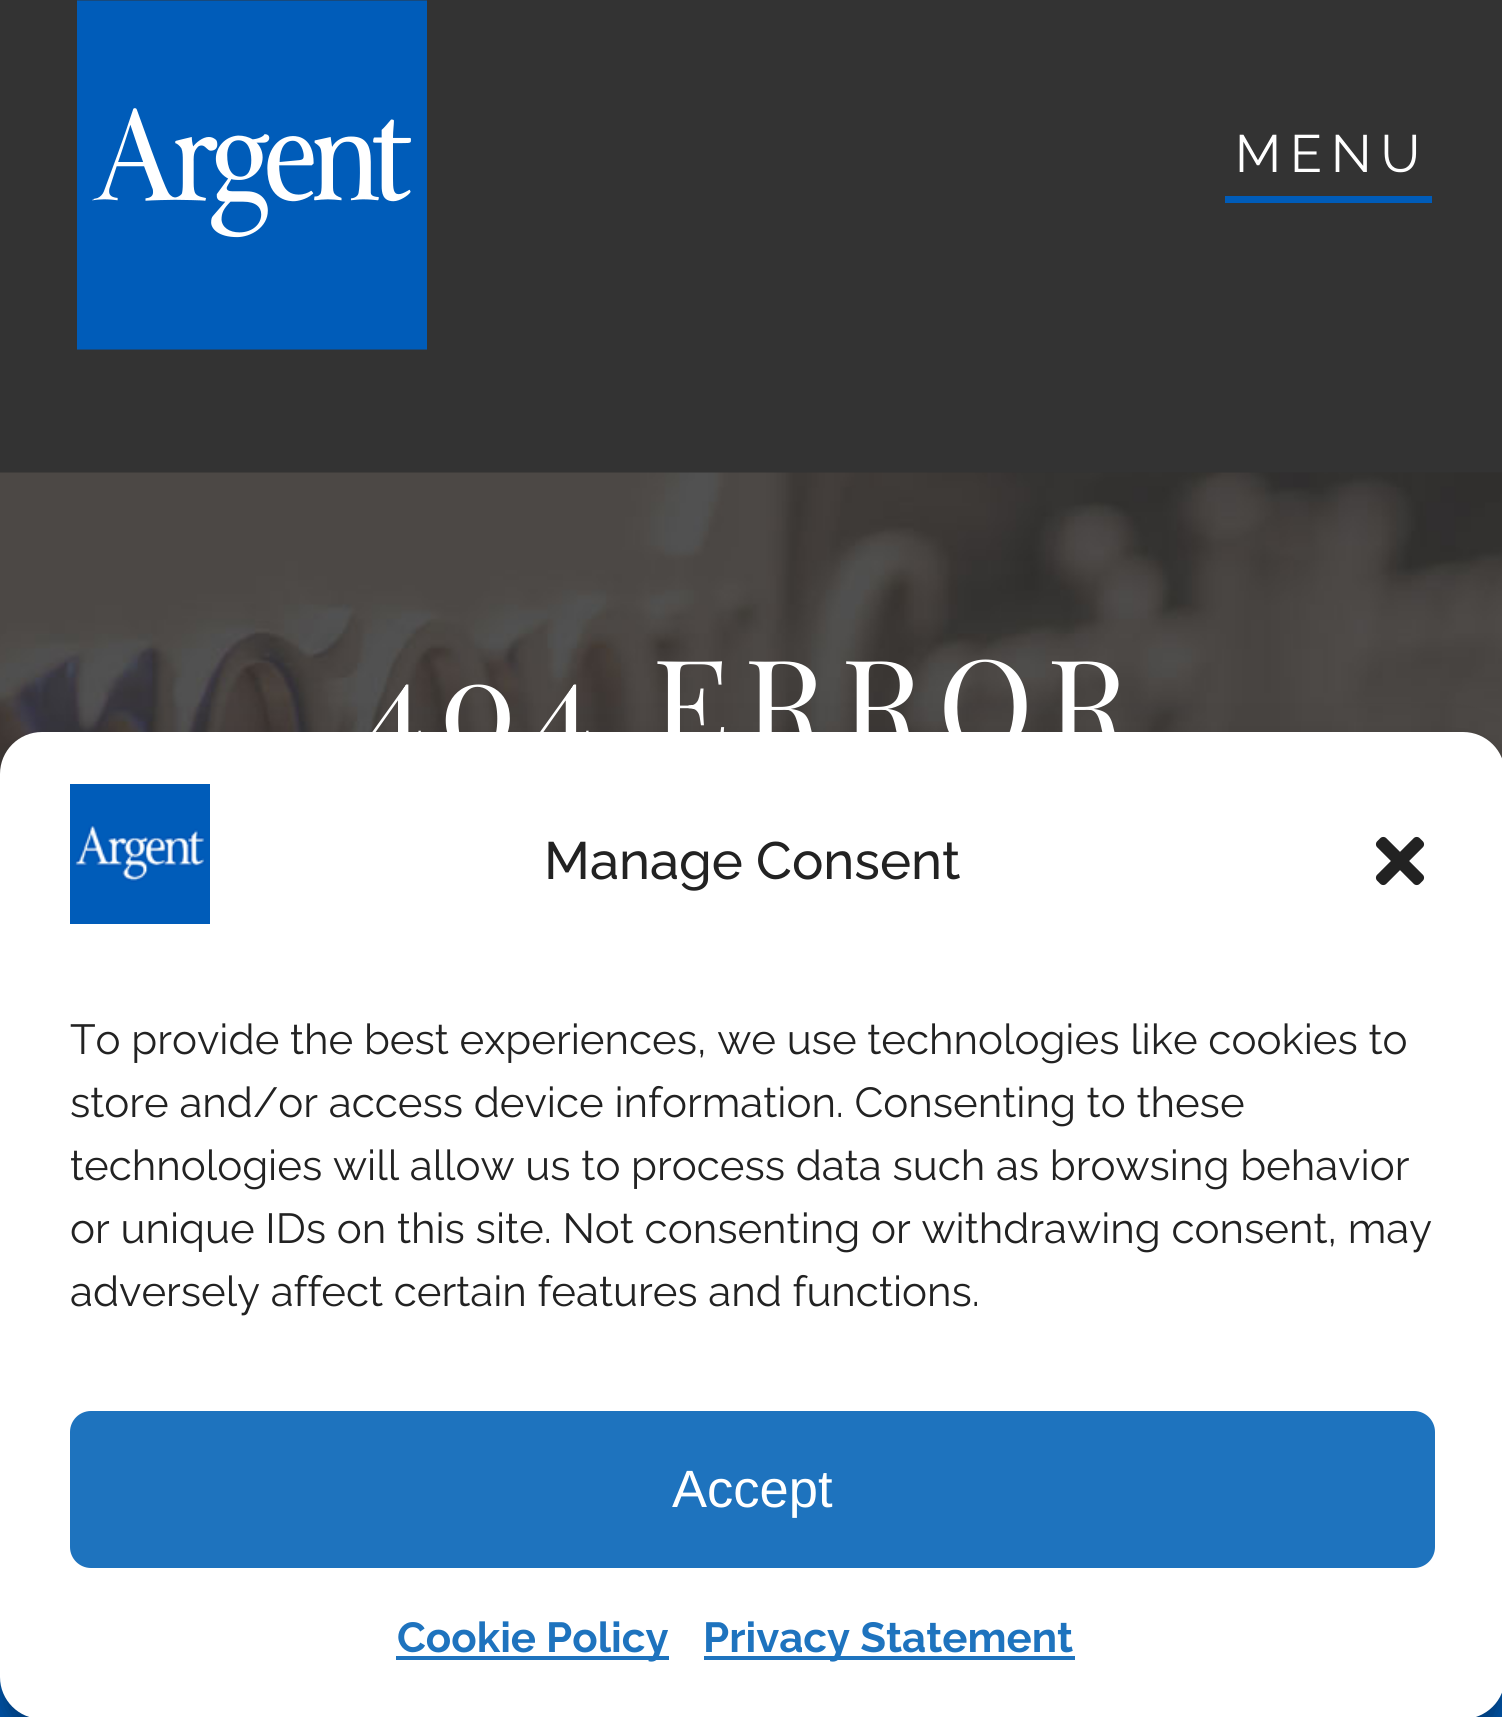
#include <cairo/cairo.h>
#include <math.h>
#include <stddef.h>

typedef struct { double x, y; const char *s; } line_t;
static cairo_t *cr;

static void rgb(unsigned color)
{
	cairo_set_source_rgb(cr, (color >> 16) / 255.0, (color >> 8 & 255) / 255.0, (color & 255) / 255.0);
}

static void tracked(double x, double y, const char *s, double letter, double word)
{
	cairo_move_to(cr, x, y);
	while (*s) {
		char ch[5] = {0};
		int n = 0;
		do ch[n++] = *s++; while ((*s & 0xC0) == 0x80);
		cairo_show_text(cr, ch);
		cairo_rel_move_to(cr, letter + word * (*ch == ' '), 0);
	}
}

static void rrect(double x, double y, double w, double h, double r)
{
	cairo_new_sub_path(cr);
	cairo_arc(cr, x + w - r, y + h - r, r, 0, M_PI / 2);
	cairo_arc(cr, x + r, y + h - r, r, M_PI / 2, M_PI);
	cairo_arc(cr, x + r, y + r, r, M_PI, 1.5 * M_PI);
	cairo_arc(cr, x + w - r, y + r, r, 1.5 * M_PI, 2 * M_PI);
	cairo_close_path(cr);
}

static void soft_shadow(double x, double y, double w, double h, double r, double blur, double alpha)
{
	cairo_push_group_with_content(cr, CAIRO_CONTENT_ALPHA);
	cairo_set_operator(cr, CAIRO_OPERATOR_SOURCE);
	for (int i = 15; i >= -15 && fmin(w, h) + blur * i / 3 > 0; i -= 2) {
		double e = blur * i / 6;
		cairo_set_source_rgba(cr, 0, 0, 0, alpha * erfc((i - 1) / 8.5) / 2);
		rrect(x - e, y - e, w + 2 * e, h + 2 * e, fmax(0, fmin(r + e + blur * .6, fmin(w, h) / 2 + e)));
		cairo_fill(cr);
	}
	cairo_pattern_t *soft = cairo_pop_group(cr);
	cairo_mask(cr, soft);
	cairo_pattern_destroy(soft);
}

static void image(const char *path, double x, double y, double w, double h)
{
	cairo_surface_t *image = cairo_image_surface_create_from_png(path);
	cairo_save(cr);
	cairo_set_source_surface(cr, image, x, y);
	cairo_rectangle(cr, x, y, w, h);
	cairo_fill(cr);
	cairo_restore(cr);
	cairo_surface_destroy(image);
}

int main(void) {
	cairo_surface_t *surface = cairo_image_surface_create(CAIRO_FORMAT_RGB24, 1502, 1717);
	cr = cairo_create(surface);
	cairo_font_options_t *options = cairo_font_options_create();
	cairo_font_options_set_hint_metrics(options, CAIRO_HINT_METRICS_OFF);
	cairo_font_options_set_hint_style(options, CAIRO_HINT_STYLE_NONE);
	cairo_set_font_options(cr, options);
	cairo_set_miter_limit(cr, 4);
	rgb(0x005cb9);
	cairo_paint(cr);
	rgb(0x333333);
	cairo_rectangle(cr, 0, 0, 1502, 473);
	cairo_fill(cr);
	image("img/1.png", 77, 0, 350, 350);
	rgb(0x005cb9);
	cairo_rectangle(cr, 1225, 196, 207, 7);
	cairo_fill(cr);
	image("img/2.png", 0, 472, 1502, 302);
	rgb(0x000000);
	soft_shadow(0, 753, 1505, 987, 42, 10.5, 0.23);
	soft_shadow(0, 767, 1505, 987, 42, 35, 0.19);
	rgb(0xffffff);
	rrect(0, 732, 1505, 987, 42);
	cairo_fill(cr);
	image("img/3.png", 70, 784, 140, 140);
	image("img/4.png", 1375, 836, 50, 50);
	rgb(0x1e73be);
	rrect(72, 1413, 1361, 153, 19);
	cairo_fill_preserve(cr);
	cairo_set_line_width(cr, 4);
	cairo_stroke(cr);
	cairo_rectangle(cr, 396, 1656, 273, 4);
	cairo_fill(cr);
	cairo_rectangle(cr, 704, 1656, 371, 4);
	cairo_fill(cr);
	cairo_select_font_face(cr, "Raleway Thin", CAIRO_FONT_SLANT_NORMAL, CAIRO_FONT_WEIGHT_NORMAL);
	cairo_set_font_size(cr, 52.5);
	rgb(0xffffff);
	tracked(1235, 172, "MENU", 9, 0);
	cairo_select_font_face(cr, "Playfair Display", CAIRO_FONT_SLANT_NORMAL, CAIRO_FONT_WEIGHT_NORMAL);
	cairo_set_font_size(cr, 129.5);
	tracked(362, 753, "404 ERROR", 13, 0);
	cairo_select_font_face(cr, "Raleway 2 Thin", CAIRO_FONT_SLANT_NORMAL, CAIRO_FONT_WEIGHT_NORMAL);
	cairo_set_font_size(cr, 52.5);
	rgb(0x222222);
	cairo_move_to(cr, 544, 879);
	cairo_show_text(cr, "Manage Consent");
	cairo_select_font_face(cr, "Raleway Thin", CAIRO_FONT_SLANT_NORMAL, CAIRO_FONT_WEIGHT_NORMAL);
	cairo_set_font_size(cr, 42);
	{
		static const line_t items[] = {
			{70, 1054, "To provide the best experiences, we use technologies like cookies to"},
			{70, 1117, "store and/or access device information. Consenting to these"},
			{70, 1180, "technologies will allow us to process data such as browsing behavior"},
			{70, 1243, "or unique IDs on this site. Not consenting or withdrawing consent, may"},
			{70, 1306, "adversely affect certain features and functions."},
		};
		for (size_t i = 0; i < sizeof items / sizeof *items; i++) {
			cairo_move_to(cr, items[i].x, items[i].y);
			cairo_show_text(cr, items[i].s);
		}
	}
	cairo_select_font_face(cr, "Liberation Sans", CAIRO_FONT_SLANT_NORMAL, CAIRO_FONT_WEIGHT_NORMAL);
	cairo_set_font_size(cr, 52.5);
	rgb(0xffffff);
	cairo_move_to(cr, 672, 1507);
	cairo_show_text(cr, "Accept");
	cairo_select_font_face(cr, "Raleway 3 Thin", CAIRO_FONT_SLANT_NORMAL, CAIRO_FONT_WEIGHT_NORMAL);
	cairo_set_font_size(cr, 42);
	rgb(0x1e73be);
	cairo_move_to(cr, 397, 1652);
	cairo_show_text(cr, "Cookie Policy");
	cairo_move_to(cr, 703, 1652);
	cairo_show_text(cr, "Privacy Statement");
	cairo_surface_write_to_png(surface, "page.png");
	cairo_font_options_destroy(options);
	cairo_destroy(cr);
	cairo_surface_destroy(surface);
	return 0;
}
